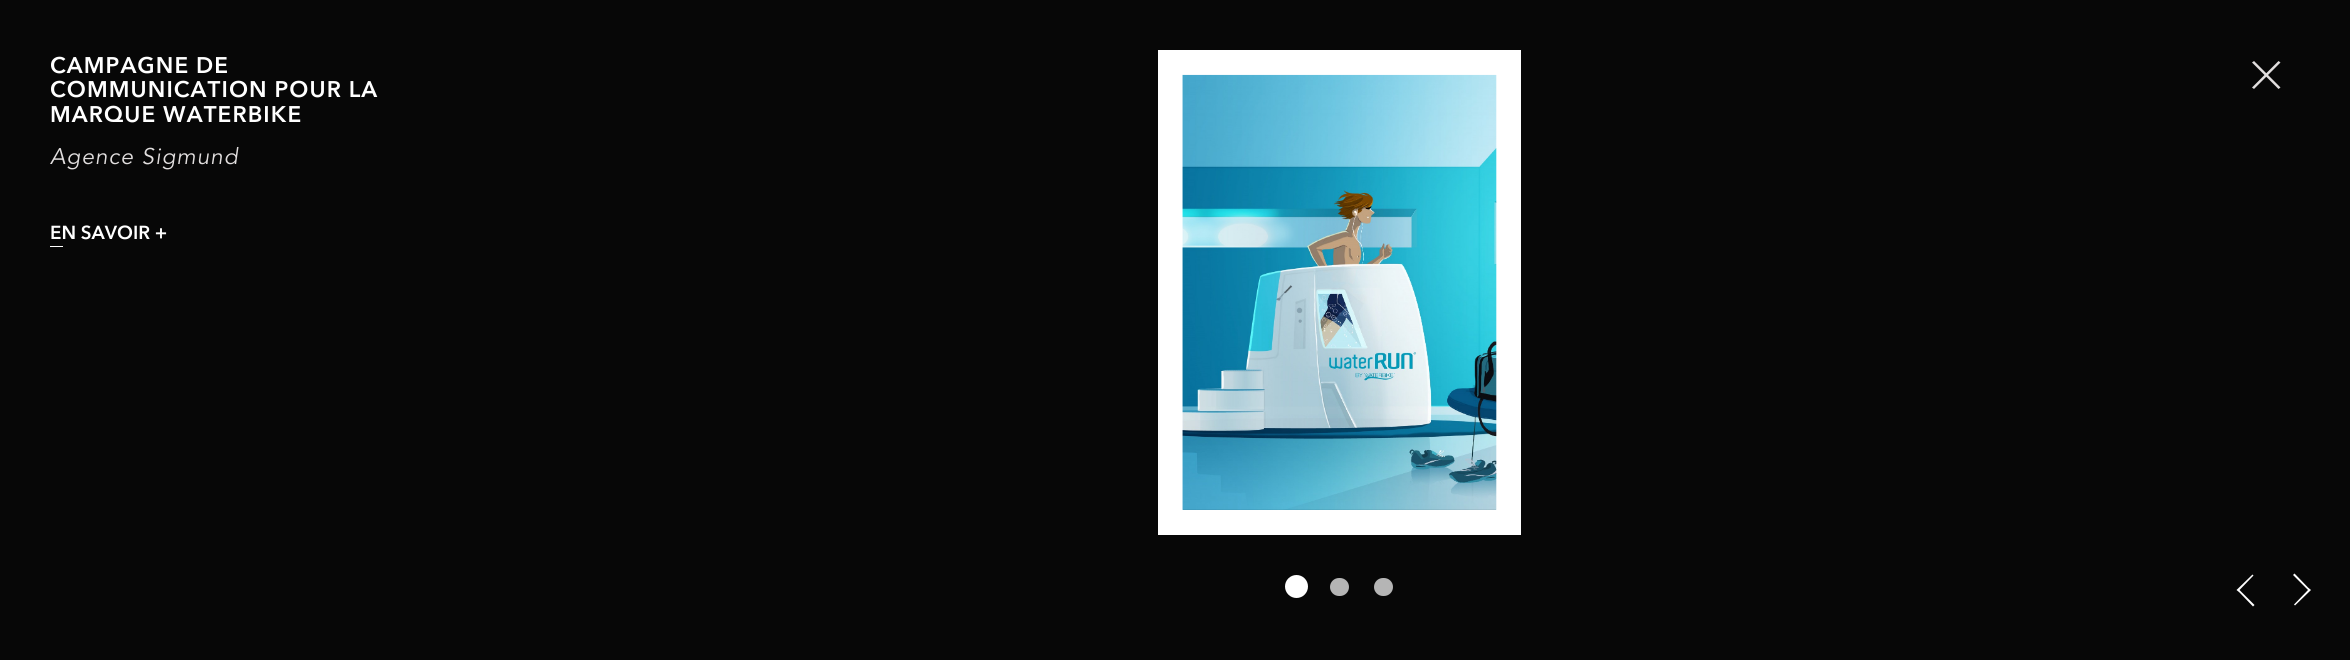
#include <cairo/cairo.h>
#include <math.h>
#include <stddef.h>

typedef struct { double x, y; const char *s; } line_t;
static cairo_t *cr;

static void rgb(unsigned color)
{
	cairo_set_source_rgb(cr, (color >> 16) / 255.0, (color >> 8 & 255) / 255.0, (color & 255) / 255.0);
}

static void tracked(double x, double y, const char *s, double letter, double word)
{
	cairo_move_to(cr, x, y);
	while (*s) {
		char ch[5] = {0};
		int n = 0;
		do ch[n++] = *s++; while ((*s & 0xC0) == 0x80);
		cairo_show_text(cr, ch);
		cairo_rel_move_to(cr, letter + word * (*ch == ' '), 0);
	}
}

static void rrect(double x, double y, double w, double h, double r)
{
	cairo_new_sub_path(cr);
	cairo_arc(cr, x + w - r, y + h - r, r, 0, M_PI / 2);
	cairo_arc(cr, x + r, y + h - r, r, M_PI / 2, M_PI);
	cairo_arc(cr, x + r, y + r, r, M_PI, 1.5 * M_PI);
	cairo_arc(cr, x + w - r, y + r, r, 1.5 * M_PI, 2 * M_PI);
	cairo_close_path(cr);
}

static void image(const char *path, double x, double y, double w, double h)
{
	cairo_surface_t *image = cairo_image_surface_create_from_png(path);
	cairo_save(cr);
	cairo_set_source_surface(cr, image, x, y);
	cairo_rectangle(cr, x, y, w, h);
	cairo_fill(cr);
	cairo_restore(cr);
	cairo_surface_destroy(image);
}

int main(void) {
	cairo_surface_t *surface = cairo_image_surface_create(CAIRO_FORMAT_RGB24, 2350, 660);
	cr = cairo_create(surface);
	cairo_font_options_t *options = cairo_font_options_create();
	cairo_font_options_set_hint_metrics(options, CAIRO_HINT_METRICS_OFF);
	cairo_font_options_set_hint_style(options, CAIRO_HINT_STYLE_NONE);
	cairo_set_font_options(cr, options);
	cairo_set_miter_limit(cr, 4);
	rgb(0x070707);
	cairo_paint(cr);
	rgb(0xffffff);
	cairo_rectangle(cr, 50, 246, 13, 1);
	cairo_fill(cr);
	cairo_rectangle(cr, 1170.5, 62.5, 338, 460);
	cairo_set_line_width(cr, 25);
	cairo_stroke(cr);
	image("img/1.png", 1182, 74, 315, 436);
	cairo_arc(cr, 1296.5, 586.5, 11.5, 0, 2 * M_PI);
	cairo_fill(cr);
	rgb(0xb5b5b5);
	rrect(1330, 578, 19, 18, 9);
	cairo_fill(cr);
	rrect(1374, 578, 19, 18, 9);
	cairo_fill(cr);
	rgb(0xffffff);
	cairo_new_path(cr);
	cairo_move_to(cr, 2239.5, 592.5);
	cairo_line_to(cr, 2253, 606.5);
	cairo_line_to(cr, 2254.5, 605);
	cairo_line_to(cr, 2239.5, 590);
	cairo_line_to(cr, 2253.5, 575.5);
	cairo_line_to(cr, 2252.5, 574.5);
	cairo_line_to(cr, 2236.5, 590);
	cairo_close_path(cr);
	cairo_fill(cr);
	cairo_new_path(cr);
	cairo_move_to(cr, 2308, 587.5);
	cairo_line_to(cr, 2294.5, 573.5);
	cairo_line_to(cr, 2293, 575);
	cairo_line_to(cr, 2308, 590);
	cairo_line_to(cr, 2294, 604.5);
	cairo_line_to(cr, 2295, 605.5);
	cairo_line_to(cr, 2311, 590);
	cairo_close_path(cr);
	cairo_fill(cr);
	rgb(0xe1dede);
	cairo_new_path(cr);
	cairo_move_to(cr, 2278.5, 61);
	cairo_line_to(cr, 2280.5, 62.5);
	cairo_line_to(cr, 2254, 89);
	cairo_line_to(cr, 2252, 87.5);
	cairo_close_path(cr);
	cairo_fill(cr);
	cairo_new_path(cr);
	cairo_move_to(cr, 2252, 62.5);
	cairo_line_to(cr, 2254, 61);
	cairo_line_to(cr, 2280.5, 87.5);
	cairo_line_to(cr, 2278.5, 89);
	cairo_close_path(cr);
	cairo_fill(cr);
	cairo_select_font_face(cr, "Avenir Next SemiBold", CAIRO_FONT_SLANT_NORMAL, CAIRO_FONT_WEIGHT_NORMAL);
	cairo_set_font_size(cr, 22.5);
	rgb(0xffffff);
	{
		static const line_t items[] = {
			{50, 73, "CAMPAGNE DE"},
			{50, 97, "COMMUNICATION POUR LA"},
			{50, 122, "MARQUE WATERBIKE"},
		};
		for (size_t i = 0; i < sizeof items / sizeof *items; i++) {
			tracked(items[i].x, items[i].y, items[i].s, 1.1, 0);
		}
	}
	cairo_select_font_face(cr, "Avenir", CAIRO_FONT_SLANT_ITALIC, CAIRO_FONT_WEIGHT_NORMAL);
	rgb(0xe1dede);
	tracked(50, 164, "Agence Sigmund", 1.1, 0);
	cairo_select_font_face(cr, "Avenir Next SemiBold", CAIRO_FONT_SLANT_NORMAL, CAIRO_FONT_WEIGHT_NORMAL);
	cairo_set_font_size(cr, 18.75);
	rgb(0xffffff);
	cairo_move_to(cr, 50, 239);
	cairo_show_text(cr, "EN SAVOIR +");
	cairo_surface_write_to_png(surface, "page.png");
	cairo_font_options_destroy(options);
	cairo_destroy(cr);
	cairo_surface_destroy(surface);
	return 0;
}
